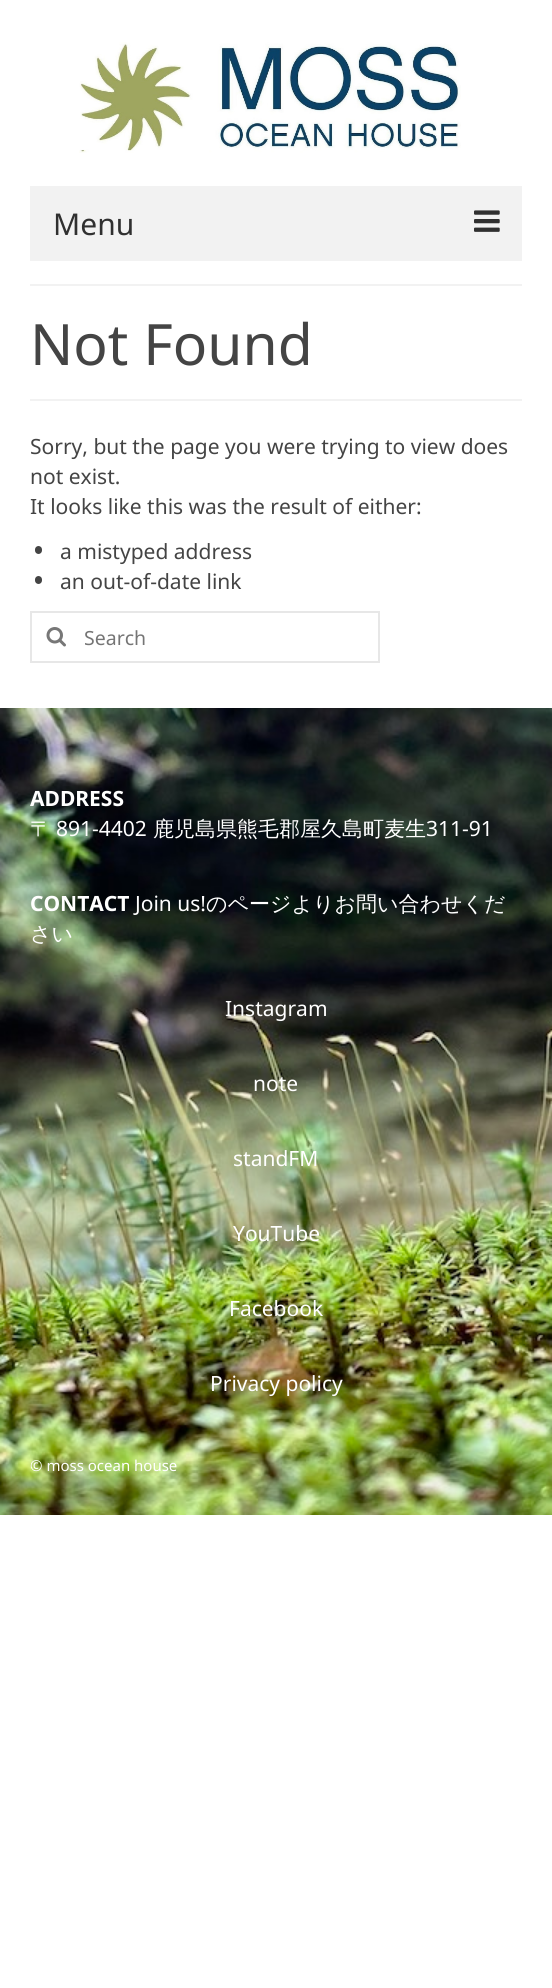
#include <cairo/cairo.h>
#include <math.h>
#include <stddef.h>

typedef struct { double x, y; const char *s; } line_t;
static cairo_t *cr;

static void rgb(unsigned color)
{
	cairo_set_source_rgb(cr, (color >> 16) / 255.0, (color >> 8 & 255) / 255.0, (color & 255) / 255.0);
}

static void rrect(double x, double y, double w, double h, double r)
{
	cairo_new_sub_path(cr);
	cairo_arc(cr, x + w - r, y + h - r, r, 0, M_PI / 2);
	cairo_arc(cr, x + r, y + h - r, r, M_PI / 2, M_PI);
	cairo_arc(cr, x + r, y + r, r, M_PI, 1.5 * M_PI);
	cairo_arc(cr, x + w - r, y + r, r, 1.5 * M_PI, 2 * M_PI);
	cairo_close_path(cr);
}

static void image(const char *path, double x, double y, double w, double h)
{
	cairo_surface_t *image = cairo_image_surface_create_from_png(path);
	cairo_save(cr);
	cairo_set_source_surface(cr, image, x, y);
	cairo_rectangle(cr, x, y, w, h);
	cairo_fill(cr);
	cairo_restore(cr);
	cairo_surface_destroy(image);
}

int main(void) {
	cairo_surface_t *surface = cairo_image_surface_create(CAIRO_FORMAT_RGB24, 552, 1988);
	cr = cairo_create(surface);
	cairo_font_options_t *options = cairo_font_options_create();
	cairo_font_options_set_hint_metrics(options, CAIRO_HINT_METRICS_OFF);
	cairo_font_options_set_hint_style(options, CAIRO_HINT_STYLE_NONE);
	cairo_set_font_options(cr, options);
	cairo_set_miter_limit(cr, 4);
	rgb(0xffffff);
	cairo_paint(cr);
	image("img/1.png", 79, 42, 382, 111);
	rgb(0xf2f2f2);
	cairo_rectangle(cr, 30, 186, 492, 75);
	cairo_fill(cr);
	image("img/2.png", 474, 210, 26, 22);
	cairo_rectangle(cr, 30, 284, 492, 2);
	cairo_fill(cr);
	cairo_rectangle(cr, 30, 399, 492, 2);
	cairo_fill(cr);
	rgb(0x444444);
	rrect(35, 546, 7, 8, 3.5);
	cairo_fill(cr);
	rrect(35, 576, 7, 8, 3.5);
	cairo_fill(cr);
	cairo_rectangle(cr, 31, 612, 348, 50);
	rgb(0xe7e7e7);
	cairo_stroke(cr);
	image("img/3.png", 46, 627, 20, 20);
	image("img/4.png", 0, 708, 552, 807);
	cairo_select_font_face(cr, "Noto Sans", CAIRO_FONT_SLANT_NORMAL, CAIRO_FONT_WEIGHT_NORMAL);
	cairo_set_font_size(cr, 30);
	rgb(0x303030);
	cairo_move_to(cr, 53, 235);
	cairo_show_text(cr, "Menu");
	cairo_set_font_size(cr, 57);
	rgb(0x444444);
	cairo_move_to(cr, 30, 365);
	cairo_show_text(cr, "Not Found");
	cairo_set_font_size(cr, 21);
	{
		static const line_t items[] = {
			{30, 454, "Sorry, but the page you were trying to view does"},
			{30, 484, "not exist."},
			{30, 514, "It looks like this was the result of either:"},
			{60, 559, "a mistyped address"},
			{60, 589, "an out-of-date link"},
		};
		for (size_t i = 0; i < sizeof items / sizeof *items; i++) {
			cairo_move_to(cr, items[i].x, items[i].y);
			cairo_show_text(cr, items[i].s);
		}
	}
	cairo_set_font_size(cr, 19.5);
	rgb(0x757575);
	cairo_move_to(cr, 84, 645);
	cairo_show_text(cr, "Search");
	cairo_select_font_face(cr, "Noto Sans", CAIRO_FONT_SLANT_NORMAL, CAIRO_FONT_WEIGHT_BOLD);
	cairo_set_font_size(cr, 21);
	rgb(0xffffff);
	cairo_move_to(cr, 30, 806);
	cairo_show_text(cr, "ADDRESS");
	cairo_select_font_face(cr, "WenQuanYi Zen Hei Medium", CAIRO_FONT_SLANT_NORMAL, CAIRO_FONT_WEIGHT_NORMAL);
	cairo_move_to(cr, 30, 836);
	cairo_show_text(cr, "〒");
	cairo_select_font_face(cr, "Noto Sans", CAIRO_FONT_SLANT_NORMAL, CAIRO_FONT_WEIGHT_NORMAL);
	cairo_move_to(cr, 56, 836);
	cairo_show_text(cr, "891-4402");
	cairo_select_font_face(cr, "WenQuanYi Zen Hei Medium", CAIRO_FONT_SLANT_NORMAL, CAIRO_FONT_WEIGHT_NORMAL);
	cairo_move_to(cr, 153, 836);
	cairo_show_text(cr, "鹿児島県熊毛郡屋久島町麦生");
	cairo_select_font_face(cr, "Noto Sans", CAIRO_FONT_SLANT_NORMAL, CAIRO_FONT_WEIGHT_NORMAL);
	cairo_move_to(cr, 426, 836);
	cairo_show_text(cr, "311-91");
	cairo_select_font_face(cr, "Noto Sans", CAIRO_FONT_SLANT_NORMAL, CAIRO_FONT_WEIGHT_BOLD);
	cairo_move_to(cr, 30, 911);
	cairo_show_text(cr, "CONTACT");
	cairo_select_font_face(cr, "Noto Sans", CAIRO_FONT_SLANT_NORMAL, CAIRO_FONT_WEIGHT_NORMAL);
	cairo_move_to(cr, 135, 911);
	cairo_show_text(cr, "Join us!");
	cairo_select_font_face(cr, "WenQuanYi Zen Hei Medium", CAIRO_FONT_SLANT_NORMAL, CAIRO_FONT_WEIGHT_NORMAL);
	cairo_move_to(cr, 206, 911);
	cairo_show_text(cr, "のページよりお問い合わせくだ");
	cairo_move_to(cr, 30, 941);
	cairo_show_text(cr, "さい");
	cairo_select_font_face(cr, "Noto Sans", CAIRO_FONT_SLANT_NORMAL, CAIRO_FONT_WEIGHT_NORMAL);
	{
		static const line_t items[] = {
			{225, 1016, "Instagram"},
			{253, 1091, "note"},
			{233, 1166, "standFM"},
			{233, 1241, "YouTube"},
			{229, 1316, "Facebook"},
			{210, 1391, "Privacy policy"},
		};
		for (size_t i = 0; i < sizeof items / sizeof *items; i++) {
			cairo_move_to(cr, items[i].x, items[i].y);
			cairo_show_text(cr, items[i].s);
		}
	}
	cairo_set_font_size(cr, 15);
	cairo_move_to(cr, 30, 1471);
	cairo_show_text(cr, "© moss ocean house");
	cairo_surface_write_to_png(surface, "page.png");
	cairo_font_options_destroy(options);
	cairo_destroy(cr);
	cairo_surface_destroy(surface);
	return 0;
}
